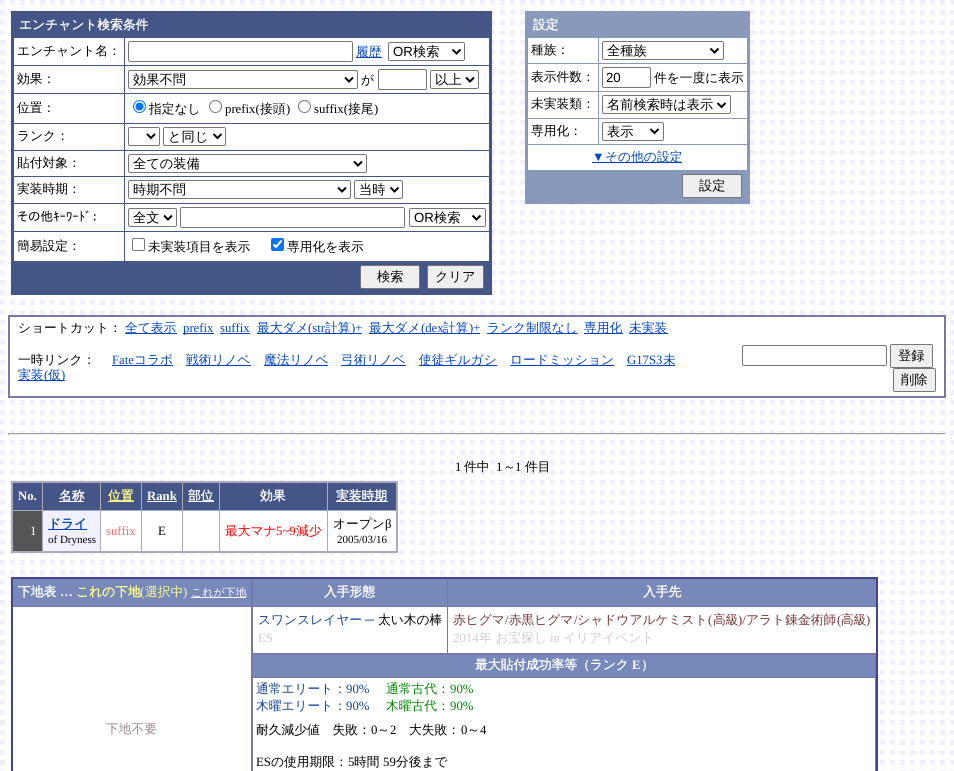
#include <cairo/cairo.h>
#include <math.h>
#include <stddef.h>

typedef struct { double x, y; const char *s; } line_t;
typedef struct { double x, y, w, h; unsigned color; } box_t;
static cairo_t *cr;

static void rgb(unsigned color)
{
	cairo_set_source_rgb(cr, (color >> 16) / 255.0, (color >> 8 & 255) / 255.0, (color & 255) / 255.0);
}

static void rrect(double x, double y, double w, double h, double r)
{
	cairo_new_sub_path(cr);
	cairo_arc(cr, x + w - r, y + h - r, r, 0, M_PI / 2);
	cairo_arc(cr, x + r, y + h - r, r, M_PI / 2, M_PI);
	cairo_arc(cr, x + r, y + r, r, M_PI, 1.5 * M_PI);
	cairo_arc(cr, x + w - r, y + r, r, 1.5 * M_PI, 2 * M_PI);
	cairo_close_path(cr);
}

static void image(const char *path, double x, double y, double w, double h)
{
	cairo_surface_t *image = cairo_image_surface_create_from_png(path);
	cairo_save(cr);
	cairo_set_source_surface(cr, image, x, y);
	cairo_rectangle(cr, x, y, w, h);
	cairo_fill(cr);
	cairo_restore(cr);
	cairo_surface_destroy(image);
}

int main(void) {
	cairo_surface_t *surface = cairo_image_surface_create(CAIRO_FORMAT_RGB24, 954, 771);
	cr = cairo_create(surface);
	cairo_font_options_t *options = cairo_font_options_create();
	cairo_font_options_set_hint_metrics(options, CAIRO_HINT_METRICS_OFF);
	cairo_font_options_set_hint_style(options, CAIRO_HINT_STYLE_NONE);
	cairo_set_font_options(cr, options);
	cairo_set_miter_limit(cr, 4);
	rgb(0xffffff);
	cairo_paint(cr);
	image("img/1.png", 0, 0, 954, 771);
	{
		static const box_t items[] = {
			{11, 11, 481, 284, 0x445588},
			{14, 38, 110, 27, 0xffffff},
			{125, 38, 364, 27, 0xffffff},
		};
		for (size_t i = 0; i < sizeof items / sizeof *items; i++) {
			rgb(items[i].color);
			cairo_rectangle(cr, items[i].x, items[i].y, items[i].w, items[i].h);
			cairo_fill(cr);
		}
	}
	rrect(128.5, 41.5, 224, 20, 1.5);
	rgb(0x767676);
	cairo_set_line_width(cr, 1);
	cairo_stroke(cr);
	rgb(0x0044bb);
	cairo_rectangle(cr, 356, 57, 26, 1);
	cairo_fill(cr);
	rrect(388.5, 42.5, 76, 18, 1.5);
	rgb(0x767676);
	cairo_stroke(cr);
	cairo_new_path(cr);
	cairo_move_to(cr, 452.5, 49.5);
	cairo_line_to(cr, 456.5, 53.5);
	cairo_line_to(cr, 460.5, 49.5);
	rgb(0x000000);
	cairo_set_line_width(cr, 2);
	cairo_stroke(cr);
	rgb(0xffffff);
	cairo_rectangle(cr, 14, 66, 110, 27);
	cairo_fill(cr);
	cairo_rectangle(cr, 125, 66, 364, 27);
	cairo_fill(cr);
	rrect(128.5, 70.5, 229, 18, 1.5);
	rgb(0x767676);
	cairo_set_line_width(cr, 1);
	cairo_stroke(cr);
	cairo_new_path(cr);
	cairo_move_to(cr, 345, 77.5);
	cairo_line_to(cr, 349, 81.5);
	cairo_line_to(cr, 353, 77.5);
	rgb(0x000000);
	cairo_set_line_width(cr, 2);
	cairo_stroke(cr);
	rrect(378.5, 69.5, 48, 20, 1.5);
	rgb(0x767676);
	cairo_set_line_width(cr, 1);
	cairo_stroke(cr);
	rrect(430.5, 70.5, 48, 18, 1.5);
	cairo_stroke(cr);
	cairo_new_path(cr);
	cairo_move_to(cr, 466, 77.5);
	cairo_line_to(cr, 470, 81.5);
	cairo_line_to(cr, 474, 77.5);
	rgb(0x000000);
	cairo_set_line_width(cr, 2);
	cairo_stroke(cr);
	rgb(0xffffff);
	cairo_rectangle(cr, 14, 94, 110, 29);
	cairo_fill(cr);
	cairo_rectangle(cr, 125, 94, 364, 29);
	cairo_fill(cr);
	cairo_arc(cr, 139.5, 106.5, 6, 0, 2 * M_PI);
	rgb(0x0075ff);
	cairo_set_line_width(cr, 1);
	cairo_stroke(cr);
	cairo_arc(cr, 139.5, 106.5, 4, 0, 2 * M_PI);
	cairo_fill(cr);
	cairo_arc(cr, 215.5, 106.5, 6, 0, 2 * M_PI);
	rgb(0x767676);
	cairo_stroke(cr);
	cairo_arc(cr, 304.5, 106.5, 6, 0, 2 * M_PI);
	cairo_stroke(cr);
	rgb(0xffffff);
	cairo_rectangle(cr, 14, 124, 110, 26);
	cairo_fill(cr);
	cairo_rectangle(cr, 125, 124, 364, 26);
	cairo_fill(cr);
	rrect(128.5, 127.5, 31, 18, 1.5);
	rgb(0x767676);
	cairo_stroke(cr);
	cairo_new_path(cr);
	cairo_move_to(cr, 147, 134);
	cairo_line_to(cr, 151, 138);
	cairo_line_to(cr, 155, 134);
	rgb(0x000000);
	cairo_set_line_width(cr, 2);
	cairo_stroke(cr);
	rrect(163.5, 127.5, 62, 18, 1.5);
	rgb(0x767676);
	cairo_set_line_width(cr, 1);
	cairo_stroke(cr);
	cairo_new_path(cr);
	cairo_move_to(cr, 213.5, 134);
	cairo_line_to(cr, 217.5, 138);
	cairo_line_to(cr, 221.5, 134);
	rgb(0x000000);
	cairo_set_line_width(cr, 2);
	cairo_stroke(cr);
	rgb(0xffffff);
	cairo_rectangle(cr, 14, 151, 110, 25);
	cairo_fill(cr);
	cairo_rectangle(cr, 125, 151, 364, 25);
	cairo_fill(cr);
	rrect(128.5, 154.5, 238, 18, 1.5);
	rgb(0x767676);
	cairo_set_line_width(cr, 1);
	cairo_stroke(cr);
	cairo_new_path(cr);
	cairo_move_to(cr, 354, 161.5);
	cairo_line_to(cr, 358, 165.5);
	cairo_line_to(cr, 362, 161.5);
	rgb(0x000000);
	cairo_set_line_width(cr, 2);
	cairo_stroke(cr);
	rgb(0xffffff);
	cairo_rectangle(cr, 14, 177, 110, 26);
	cairo_fill(cr);
	cairo_rectangle(cr, 125, 177, 364, 26);
	cairo_fill(cr);
	rrect(128.5, 180.5, 222, 18, 1.5);
	rgb(0x767676);
	cairo_set_line_width(cr, 1);
	cairo_stroke(cr);
	cairo_new_path(cr);
	cairo_move_to(cr, 338, 187.5);
	cairo_line_to(cr, 342, 191.5);
	cairo_line_to(cr, 346, 187.5);
	rgb(0x000000);
	cairo_set_line_width(cr, 2);
	cairo_stroke(cr);
	rrect(354.5, 180.5, 48, 18, 1.5);
	rgb(0x767676);
	cairo_set_line_width(cr, 1);
	cairo_stroke(cr);
	cairo_new_path(cr);
	cairo_move_to(cr, 390.5, 187.5);
	cairo_line_to(cr, 394.5, 191.5);
	cairo_line_to(cr, 398.5, 187.5);
	rgb(0x000000);
	cairo_set_line_width(cr, 2);
	cairo_stroke(cr);
	rgb(0xffffff);
	cairo_rectangle(cr, 14, 204, 110, 27);
	cairo_fill(cr);
	cairo_rectangle(cr, 125, 204, 364, 27);
	cairo_fill(cr);
	rrect(128.5, 208.5, 48, 18, 1.5);
	rgb(0x767676);
	cairo_set_line_width(cr, 1);
	cairo_stroke(cr);
	cairo_new_path(cr);
	cairo_move_to(cr, 164, 215.5);
	cairo_line_to(cr, 168, 219.5);
	cairo_line_to(cr, 172, 215.5);
	rgb(0x000000);
	cairo_set_line_width(cr, 2);
	cairo_stroke(cr);
	rrect(180.5, 207.5, 224, 20, 1.5);
	rgb(0x767676);
	cairo_set_line_width(cr, 1);
	cairo_stroke(cr);
	rrect(409.5, 208.5, 76, 18, 1.5);
	cairo_stroke(cr);
	cairo_new_path(cr);
	cairo_move_to(cr, 472.5, 215.5);
	cairo_line_to(cr, 476.5, 219.5);
	cairo_line_to(cr, 480.5, 215.5);
	rgb(0x000000);
	cairo_set_line_width(cr, 2);
	cairo_stroke(cr);
	rgb(0xffffff);
	cairo_rectangle(cr, 14, 232, 110, 29);
	cairo_fill(cr);
	cairo_rectangle(cr, 125, 232, 364, 29);
	cairo_fill(cr);
	rrect(132.5, 238.5, 12, 12, 1.5);
	rgb(0x767676);
	cairo_set_line_width(cr, 1);
	cairo_stroke(cr);
	rgb(0x0075ff);
	rrect(271, 238, 13, 13, 2);
	cairo_fill(cr);
	cairo_new_path(cr);
	cairo_move_to(cr, 273.5, 244.5);
	cairo_line_to(cr, 276, 247);
	cairo_line_to(cr, 281.5, 240.5);
	rgb(0xffffff);
	cairo_set_line_width(cr, 2.1);
	cairo_stroke(cr);
	rgb(0xefefef);
	rrect(360.5, 265.5, 59, 23, 1.5);
	cairo_fill_preserve(cr);
	rgb(0x767676);
	cairo_set_line_width(cr, 1);
	cairo_stroke(cr);
	rgb(0xefefef);
	rrect(427.5, 265.5, 56, 23, 1.5);
	cairo_fill_preserve(cr);
	rgb(0x767676);
	cairo_stroke(cr);
	{
		static const box_t items[] = {
			{525, 11, 225, 193, 0x8899bb},
			{528, 38, 70, 25, 0xffffff},
			{599, 38, 148, 25, 0xffffff},
		};
		for (size_t i = 0; i < sizeof items / sizeof *items; i++) {
			rgb(items[i].color);
			cairo_rectangle(cr, items[i].x, items[i].y, items[i].w, items[i].h);
			cairo_fill(cr);
		}
	}
	rrect(602.5, 41.5, 121, 18, 1.5);
	rgb(0x767676);
	cairo_stroke(cr);
	cairo_new_path(cr);
	cairo_move_to(cr, 710.5, 48.5);
	cairo_line_to(cr, 714.5, 52.5);
	cairo_line_to(cr, 718.5, 48.5);
	rgb(0x000000);
	cairo_set_line_width(cr, 2);
	cairo_stroke(cr);
	rgb(0xffffff);
	cairo_rectangle(cr, 528, 64, 70, 27);
	cairo_fill(cr);
	cairo_rectangle(cr, 599, 64, 148, 27);
	cairo_fill(cr);
	rrect(602.5, 67.5, 48, 20, 1.5);
	rgb(0x767676);
	cairo_set_line_width(cr, 1);
	cairo_stroke(cr);
	rgb(0xffffff);
	cairo_rectangle(cr, 528, 92, 70, 26);
	cairo_fill(cr);
	cairo_rectangle(cr, 599, 92, 148, 26);
	cairo_fill(cr);
	rrect(602.5, 95.5, 128, 18, 1.5);
	rgb(0x767676);
	cairo_stroke(cr);
	cairo_new_path(cr);
	cairo_move_to(cr, 717.5, 103);
	cairo_line_to(cr, 721.5, 107);
	cairo_line_to(cr, 725.5, 103);
	rgb(0x000000);
	cairo_set_line_width(cr, 2);
	cairo_stroke(cr);
	rgb(0xffffff);
	cairo_rectangle(cr, 528, 119, 70, 25);
	cairo_fill(cr);
	cairo_rectangle(cr, 599, 119, 148, 25);
	cairo_fill(cr);
	rrect(602.5, 122.5, 61, 18, 1.5);
	rgb(0x767676);
	cairo_set_line_width(cr, 1);
	cairo_stroke(cr);
	cairo_new_path(cr);
	cairo_move_to(cr, 650.5, 129);
	cairo_line_to(cr, 654.5, 133);
	cairo_line_to(cr, 658.5, 129);
	rgb(0x000000);
	cairo_set_line_width(cr, 2);
	cairo_stroke(cr);
	rgb(0xffffff);
	cairo_rectangle(cr, 528, 145, 219, 25);
	cairo_fill(cr);
	rgb(0x0044bb);
	cairo_rectangle(cr, 592, 162, 90, 1);
	cairo_fill(cr);
	rgb(0xefefef);
	rrect(682.5, 174.5, 59, 23, 1.5);
	cairo_fill_preserve(cr);
	rgb(0x767676);
	cairo_set_line_width(cr, 1);
	cairo_stroke(cr);
	{
		static const box_t items[] = {
			{8, 315, 938, 2, 0x7777aa},
			{944, 315, 2, 83, 0x7777aa},
			{8, 396, 938, 2, 0x7777aa},
			{8, 315, 2, 83, 0x7777aa},
			{10, 320, 934, 15, 0xffffff},
			{125, 333, 52, 1, 0x0044bb},
			{183, 333, 31, 1, 0x0044bb},
			{220, 333, 30, 1, 0x0044bb},
			{257, 333, 105, 1, 0x0044bb},
			{369, 333, 111, 1, 0x0044bb},
			{487, 333, 91, 1, 0x0044bb},
			{584, 333, 39, 1, 0x0044bb},
			{629, 333, 39, 1, 0x0044bb},
			{10, 340, 934, 55, 0xffffff},
			{112, 365, 61, 1, 0x0044bb},
			{186, 365, 65, 1, 0x0044bb},
			{264, 365, 64, 1, 0x0044bb},
			{341, 365, 65, 1, 0x0044bb},
			{419, 365, 78, 1, 0x0044bb},
			{510, 365, 104, 1, 0x0044bb},
			{627, 365, 48, 1, 0x0044bb},
			{18, 380, 47, 1, 0x0044bb},
		};
		for (size_t i = 0; i < sizeof items / sizeof *items; i++) {
			rgb(items[i].color);
			cairo_rectangle(cr, items[i].x, items[i].y, items[i].w, items[i].h);
			cairo_fill(cr);
		}
	}
	rrect(742.5, 345.5, 144, 20, 1.5);
	rgb(0x767676);
	cairo_stroke(cr);
	rgb(0xefefef);
	rrect(890.5, 344.5, 42, 23, 1.5);
	cairo_fill_preserve(cr);
	rgb(0x767676);
	cairo_stroke(cr);
	rgb(0xefefef);
	rrect(893.5, 368.5, 42, 23, 1.5);
	cairo_fill_preserve(cr);
	rgb(0x767676);
	cairo_stroke(cr);
	{
		static const box_t items[] = {
			{8, 433, 938, 1, 0x9f9f9f},
			{945, 433, 1, 2, 0xeeeeee},
			{8, 434, 938, 1, 0xeeeeee},
			{8, 433, 1, 2, 0x9f9f9f},
			{101, 511, 294, 40, 0xffffff},
			{327, 510, 71, 1, 0xaaaabb},
			{327, 510, 1, 43, 0xaaaabb},
			{219, 510, 109, 1, 0xaaaabb},
			{219, 510, 1, 43, 0xaaaabb},
			{182, 510, 38, 1, 0xaaaabb},
			{182, 510, 1, 43, 0xaaaabb},
			{141, 510, 42, 1, 0xaaaabb},
			{141, 510, 1, 43, 0xaaaabb},
			{100, 510, 42, 1, 0xaaaabb},
			{100, 510, 1, 43, 0xaaaabb},
			{42, 510, 59, 1, 0xaaaabb},
			{42, 510, 1, 43, 0xaaaabb},
			{12, 510, 31, 1, 0xaaaabb},
			{42, 482, 1, 29, 0xaaaabb},
			{100, 482, 1, 29, 0xaaaabb},
			{141, 482, 1, 29, 0xaaaabb},
			{182, 482, 1, 29, 0xaaaabb},
			{219, 482, 1, 29, 0xaaaabb},
			{327, 482, 1, 29, 0xaaaabb},
			{11, 481, 387, 2, 0xaaaabb},
			{396, 481, 2, 72, 0xaaaabb},
			{11, 551, 387, 2, 0xaaaabb},
			{11, 481, 2, 72, 0xaaaabb},
			{13, 483, 29, 27, 0x445588},
			{43, 483, 57, 27, 0x445588},
			{59, 501, 25, 1, 0xffffff},
			{101, 483, 40, 27, 0x445588},
			{108, 501, 26, 1, 0xffff88},
			{142, 483, 40, 27, 0x445588},
			{147, 501, 30, 1, 0xffffff},
			{183, 483, 36, 27, 0x445588},
			{188, 501, 26, 1, 0xffffff},
			{220, 483, 107, 27, 0x445588},
			{328, 483, 68, 27, 0x445588},
			{336, 501, 52, 1, 0xffffff},
			{13, 511, 29, 40, 0x555555},
			{43, 511, 57, 40, 0xf0f0ff},
			{48, 529, 39, 1, 0x0044bb},
			{251, 578, 1, 193, 0x7777aa},
			{447, 606, 430, 1, 0x7777aa},
			{252, 653, 625, 1, 0x7777aa},
			{447, 606, 1, 48, 0x7777aa},
			{12, 606, 436, 1, 0x7777aa},
			{447, 578, 1, 29, 0x7777aa},
			{252, 578, 1, 76, 0x7777aa},
			{11, 577, 867, 2, 0x444488},
			{876, 577, 2, 194, 0x444488},
			{11, 577, 2, 194, 0x444488},
			{13, 579, 238, 27, 0x7788bb},
			{191, 597, 55, 1, 0xffffff},
			{253, 579, 194, 27, 0x7788bb},
			{448, 579, 428, 27, 0x7788bb},
			{253, 610, 192, 43, 0xffffff},
			{450, 610, 425, 43, 0xffffff},
			{13, 610, 238, 161, 0xffffff},
			{253, 680, 622, 91, 0xffffff},
			{253, 655, 622, 22, 0x7788bb},
			{252, 654, 624, 1, 0x7777aa},
			{252, 677, 624, 1, 0x7777aa},
			{875, 677, 1, 94, 0x7777aa},
			{875, 654, 1, 24, 0x7777aa},
			{252, 677, 1, 94, 0x7777aa},
			{252, 654, 1, 24, 0x7777aa},
		};
		for (size_t i = 0; i < sizeof items / sizeof *items; i++) {
			rgb(items[i].color);
			cairo_rectangle(cr, items[i].x, items[i].y, items[i].w, items[i].h);
			cairo_fill(cr);
		}
	}
	cairo_select_font_face(cr, "WenQuanYi Zen Hei", CAIRO_FONT_SLANT_NORMAL, CAIRO_FONT_WEIGHT_BOLD);
	cairo_set_font_size(cr, 12.75);
	rgb(0xffffff);
	cairo_move_to(cr, 19, 29);
	cairo_show_text(cr, "エンチャント検索条件");
	cairo_select_font_face(cr, "WenQuanYi Zen Hei Medium", CAIRO_FONT_SLANT_NORMAL, CAIRO_FONT_WEIGHT_NORMAL);
	rgb(0x000000);
	cairo_move_to(cr, 17, 55);
	cairo_show_text(cr, "エンチャント名：");
	rgb(0x0044bb);
	cairo_move_to(cr, 356, 56);
	cairo_show_text(cr, "履歴");
	cairo_select_font_face(cr, "Liberation Sans", CAIRO_FONT_SLANT_NORMAL, CAIRO_FONT_WEIGHT_NORMAL);
	cairo_set_font_size(cr, 13.25);
	rgb(0x000000);
	cairo_move_to(cr, 393, 56);
	cairo_show_text(cr, "OR");
	cairo_select_font_face(cr, "WenQuanYi Zen Hei Medium", CAIRO_FONT_SLANT_NORMAL, CAIRO_FONT_WEIGHT_NORMAL);
	cairo_move_to(cr, 413, 56);
	cairo_show_text(cr, "検索");
	cairo_set_font_size(cr, 12.75);
	cairo_move_to(cr, 17, 83);
	cairo_show_text(cr, "効果：");
	cairo_set_font_size(cr, 13.25);
	cairo_move_to(cr, 133, 84);
	cairo_show_text(cr, "効果不問");
	cairo_set_font_size(cr, 12.75);
	cairo_move_to(cr, 361, 84);
	cairo_show_text(cr, "が");
	cairo_set_font_size(cr, 13.25);
	cairo_move_to(cr, 435, 84);
	cairo_show_text(cr, "以上");
	cairo_set_font_size(cr, 12.75);
	cairo_move_to(cr, 17, 112);
	cairo_show_text(cr, "位置：");
	cairo_move_to(cr, 149, 113);
	cairo_show_text(cr, "指定なし");
	cairo_select_font_face(cr, "Liberation Serif", CAIRO_FONT_SLANT_NORMAL, CAIRO_FONT_WEIGHT_NORMAL);
	cairo_move_to(cr, 225, 113);
	cairo_show_text(cr, "prefix(");
	cairo_select_font_face(cr, "WenQuanYi Zen Hei Medium", CAIRO_FONT_SLANT_NORMAL, CAIRO_FONT_WEIGHT_NORMAL);
	cairo_move_to(cr, 260, 113);
	cairo_show_text(cr, "接頭");
	cairo_select_font_face(cr, "Liberation Serif", CAIRO_FONT_SLANT_NORMAL, CAIRO_FONT_WEIGHT_NORMAL);
	cairo_move_to(cr, 286, 113);
	cairo_show_text(cr, ")");
	cairo_move_to(cr, 314, 113);
	cairo_show_text(cr, "suffix(");
	cairo_select_font_face(cr, "WenQuanYi Zen Hei Medium", CAIRO_FONT_SLANT_NORMAL, CAIRO_FONT_WEIGHT_NORMAL);
	cairo_move_to(cr, 348, 113);
	cairo_show_text(cr, "接尾");
	cairo_select_font_face(cr, "Liberation Serif", CAIRO_FONT_SLANT_NORMAL, CAIRO_FONT_WEIGHT_NORMAL);
	cairo_move_to(cr, 374, 113);
	cairo_show_text(cr, ")");
	cairo_select_font_face(cr, "WenQuanYi Zen Hei Medium", CAIRO_FONT_SLANT_NORMAL, CAIRO_FONT_WEIGHT_NORMAL);
	cairo_move_to(cr, 17, 140);
	cairo_show_text(cr, "ランク：");
	cairo_set_font_size(cr, 13.25);
	cairo_move_to(cr, 168, 141);
	cairo_show_text(cr, "と同じ");
	cairo_set_font_size(cr, 12.75);
	cairo_move_to(cr, 17, 167);
	cairo_show_text(cr, "貼付対象：");
	cairo_set_font_size(cr, 13.25);
	cairo_move_to(cr, 133, 168);
	cairo_show_text(cr, "全ての装備");
	cairo_set_font_size(cr, 12.75);
	cairo_move_to(cr, 17, 193);
	cairo_show_text(cr, "実装時期：");
	cairo_set_font_size(cr, 13.25);
	cairo_move_to(cr, 133, 194);
	cairo_show_text(cr, "時期不問");
	cairo_move_to(cr, 359, 194);
	cairo_show_text(cr, "当時");
	cairo_select_font_face(cr, "IPAPGothic", CAIRO_FONT_SLANT_NORMAL, CAIRO_FONT_WEIGHT_NORMAL);
	cairo_set_font_size(cr, 12.75);
	cairo_move_to(cr, 17, 221);
	cairo_show_text(cr, "その他ｷｰﾜｰﾄﾞ：");
	cairo_select_font_face(cr, "WenQuanYi Zen Hei Medium", CAIRO_FONT_SLANT_NORMAL, CAIRO_FONT_WEIGHT_NORMAL);
	cairo_set_font_size(cr, 13.25);
	cairo_move_to(cr, 133, 222);
	cairo_show_text(cr, "全文");
	cairo_select_font_face(cr, "Liberation Sans", CAIRO_FONT_SLANT_NORMAL, CAIRO_FONT_WEIGHT_NORMAL);
	cairo_move_to(cr, 414, 222);
	cairo_show_text(cr, "OR");
	cairo_select_font_face(cr, "WenQuanYi Zen Hei Medium", CAIRO_FONT_SLANT_NORMAL, CAIRO_FONT_WEIGHT_NORMAL);
	cairo_move_to(cr, 434, 222);
	cairo_show_text(cr, "検索");
	cairo_set_font_size(cr, 12.75);
	{
		static const line_t items[] = {
			{17, 250, "簡易設定："},
			{148, 251, "未実装項目を表示"},
			{287, 251, "専用化を表示"},
		};
		for (size_t i = 0; i < sizeof items / sizeof *items; i++) {
			cairo_move_to(cr, items[i].x, items[i].y);
			cairo_show_text(cr, items[i].s);
		}
	}
	cairo_set_font_size(cr, 13.25);
	cairo_move_to(cr, 377, 281);
	cairo_show_text(cr, "検索");
	cairo_move_to(cr, 435, 281);
	cairo_show_text(cr, "クリア");
	cairo_select_font_face(cr, "WenQuanYi Zen Hei", CAIRO_FONT_SLANT_NORMAL, CAIRO_FONT_WEIGHT_BOLD);
	cairo_set_font_size(cr, 12.75);
	rgb(0xffffff);
	cairo_move_to(cr, 533, 29);
	cairo_show_text(cr, "設定");
	cairo_select_font_face(cr, "WenQuanYi Zen Hei Medium", CAIRO_FONT_SLANT_NORMAL, CAIRO_FONT_WEIGHT_NORMAL);
	rgb(0x000000);
	cairo_move_to(cr, 531, 54);
	cairo_show_text(cr, "種族：");
	cairo_set_font_size(cr, 13.25);
	cairo_move_to(cr, 607, 55);
	cairo_show_text(cr, "全種族");
	cairo_set_font_size(cr, 12.75);
	cairo_move_to(cr, 531, 81);
	cairo_show_text(cr, "表示件数：");
	cairo_select_font_face(cr, "Liberation Sans", CAIRO_FONT_SLANT_NORMAL, CAIRO_FONT_WEIGHT_NORMAL);
	cairo_set_font_size(cr, 13.25);
	cairo_move_to(cr, 606, 82);
	cairo_show_text(cr, "20");
	cairo_select_font_face(cr, "WenQuanYi Zen Hei Medium", CAIRO_FONT_SLANT_NORMAL, CAIRO_FONT_WEIGHT_NORMAL);
	cairo_set_font_size(cr, 12.75);
	cairo_move_to(cr, 654, 82);
	cairo_show_text(cr, "件を一度に表示");
	cairo_move_to(cr, 531, 108);
	cairo_show_text(cr, "未実装類：");
	cairo_set_font_size(cr, 13.25);
	cairo_move_to(cr, 607, 109);
	cairo_show_text(cr, "名前検索時は表示");
	cairo_set_font_size(cr, 12.75);
	cairo_move_to(cr, 531, 135);
	cairo_show_text(cr, "専用化：");
	cairo_set_font_size(cr, 13.25);
	cairo_move_to(cr, 607, 136);
	cairo_show_text(cr, "表示");
	cairo_select_font_face(cr, "Liberation Serif", CAIRO_FONT_SLANT_NORMAL, CAIRO_FONT_WEIGHT_NORMAL);
	cairo_set_font_size(cr, 12.75);
	rgb(0x0044bb);
	cairo_move_to(cr, 592, 161);
	cairo_show_text(cr, "▼");
	cairo_select_font_face(cr, "WenQuanYi Zen Hei Medium", CAIRO_FONT_SLANT_NORMAL, CAIRO_FONT_WEIGHT_NORMAL);
	cairo_move_to(cr, 605, 161);
	cairo_show_text(cr, "その他の設定");
	cairo_set_font_size(cr, 13.25);
	rgb(0x000000);
	cairo_move_to(cr, 699, 190);
	cairo_show_text(cr, "設定");
	cairo_set_font_size(cr, 12.75);
	cairo_move_to(cr, 18, 332);
	cairo_show_text(cr, "ショートカット：");
	rgb(0x0044bb);
	cairo_move_to(cr, 125, 332);
	cairo_show_text(cr, "全て表示");
	cairo_select_font_face(cr, "Liberation Serif", CAIRO_FONT_SLANT_NORMAL, CAIRO_FONT_WEIGHT_NORMAL);
	cairo_move_to(cr, 183, 332);
	cairo_show_text(cr, "prefix");
	cairo_move_to(cr, 220, 332);
	cairo_show_text(cr, "suffix");
	cairo_select_font_face(cr, "WenQuanYi Zen Hei Medium", CAIRO_FONT_SLANT_NORMAL, CAIRO_FONT_WEIGHT_NORMAL);
	cairo_move_to(cr, 257, 332);
	cairo_show_text(cr, "最大ダメ");
	cairo_select_font_face(cr, "Liberation Serif", CAIRO_FONT_SLANT_NORMAL, CAIRO_FONT_WEIGHT_NORMAL);
	cairo_move_to(cr, 308, 332);
	cairo_show_text(cr, "(str");
	cairo_select_font_face(cr, "WenQuanYi Zen Hei Medium", CAIRO_FONT_SLANT_NORMAL, CAIRO_FONT_WEIGHT_NORMAL);
	cairo_move_to(cr, 325, 332);
	cairo_show_text(cr, "計算");
	cairo_select_font_face(cr, "Liberation Serif", CAIRO_FONT_SLANT_NORMAL, CAIRO_FONT_WEIGHT_NORMAL);
	cairo_move_to(cr, 351, 332);
	cairo_show_text(cr, ")+");
	cairo_select_font_face(cr, "WenQuanYi Zen Hei Medium", CAIRO_FONT_SLANT_NORMAL, CAIRO_FONT_WEIGHT_NORMAL);
	cairo_move_to(cr, 369, 332);
	cairo_show_text(cr, "最大ダメ");
	cairo_select_font_face(cr, "Liberation Serif", CAIRO_FONT_SLANT_NORMAL, CAIRO_FONT_WEIGHT_NORMAL);
	cairo_move_to(cr, 421, 332);
	cairo_show_text(cr, "(dex");
	cairo_select_font_face(cr, "WenQuanYi Zen Hei Medium", CAIRO_FONT_SLANT_NORMAL, CAIRO_FONT_WEIGHT_NORMAL);
	cairo_move_to(cr, 443, 332);
	cairo_show_text(cr, "計算");
	cairo_select_font_face(cr, "Liberation Serif", CAIRO_FONT_SLANT_NORMAL, CAIRO_FONT_WEIGHT_NORMAL);
	cairo_move_to(cr, 469, 332);
	cairo_show_text(cr, ")+");
	cairo_select_font_face(cr, "WenQuanYi Zen Hei Medium", CAIRO_FONT_SLANT_NORMAL, CAIRO_FONT_WEIGHT_NORMAL);
	{
		static const line_t items[] = {
			{487, 332, "ランク制限なし"},
			{584, 332, "専用化"},
			{629, 332, "未実装"},
		};
		for (size_t i = 0; i < sizeof items / sizeof *items; i++) {
			cairo_move_to(cr, items[i].x, items[i].y);
			cairo_show_text(cr, items[i].s);
		}
	}
	rgb(0x000000);
	cairo_move_to(cr, 18, 364);
	cairo_show_text(cr, "一時リンク：");
	cairo_select_font_face(cr, "Liberation Serif", CAIRO_FONT_SLANT_NORMAL, CAIRO_FONT_WEIGHT_NORMAL);
	rgb(0x0044bb);
	cairo_move_to(cr, 112, 364);
	cairo_show_text(cr, "Fate");
	cairo_select_font_face(cr, "WenQuanYi Zen Hei Medium", CAIRO_FONT_SLANT_NORMAL, CAIRO_FONT_WEIGHT_NORMAL);
	{
		static const line_t items[] = {
			{134, 364, "コラボ"},
			{186, 364, "戦術リノベ"},
			{264, 364, "魔法リノベ"},
			{341, 364, "弓術リノベ"},
			{419, 364, "使徒ギルガシ"},
			{510, 364, "ロードミッション"},
		};
		for (size_t i = 0; i < sizeof items / sizeof *items; i++) {
			cairo_move_to(cr, items[i].x, items[i].y);
			cairo_show_text(cr, items[i].s);
		}
	}
	cairo_select_font_face(cr, "Liberation Serif", CAIRO_FONT_SLANT_NORMAL, CAIRO_FONT_WEIGHT_NORMAL);
	cairo_move_to(cr, 627, 364);
	cairo_show_text(cr, "G17S3");
	cairo_select_font_face(cr, "WenQuanYi Zen Hei Medium", CAIRO_FONT_SLANT_NORMAL, CAIRO_FONT_WEIGHT_NORMAL);
	cairo_move_to(cr, 663, 364);
	cairo_show_text(cr, "未");
	cairo_move_to(cr, 18, 379);
	cairo_show_text(cr, "実装");
	cairo_select_font_face(cr, "Liberation Serif", CAIRO_FONT_SLANT_NORMAL, CAIRO_FONT_WEIGHT_NORMAL);
	cairo_move_to(cr, 44, 379);
	cairo_show_text(cr, "(");
	cairo_select_font_face(cr, "WenQuanYi Zen Hei Medium", CAIRO_FONT_SLANT_NORMAL, CAIRO_FONT_WEIGHT_NORMAL);
	cairo_move_to(cr, 48, 379);
	cairo_show_text(cr, "仮");
	cairo_select_font_face(cr, "Liberation Serif", CAIRO_FONT_SLANT_NORMAL, CAIRO_FONT_WEIGHT_NORMAL);
	cairo_move_to(cr, 61, 379);
	cairo_show_text(cr, ")");
	cairo_select_font_face(cr, "WenQuanYi Zen Hei Medium", CAIRO_FONT_SLANT_NORMAL, CAIRO_FONT_WEIGHT_NORMAL);
	cairo_set_font_size(cr, 13.25);
	rgb(0x000000);
	cairo_move_to(cr, 898, 360);
	cairo_show_text(cr, "登録");
	cairo_move_to(cr, 901, 384);
	cairo_show_text(cr, "削除");
	cairo_select_font_face(cr, "Liberation Serif", CAIRO_FONT_SLANT_NORMAL, CAIRO_FONT_WEIGHT_NORMAL);
	cairo_set_font_size(cr, 12.75);
	cairo_move_to(cr, 455, 471);
	cairo_show_text(cr, "1");
	cairo_select_font_face(cr, "WenQuanYi Zen Hei Medium", CAIRO_FONT_SLANT_NORMAL, CAIRO_FONT_WEIGHT_NORMAL);
	cairo_move_to(cr, 464, 471);
	cairo_show_text(cr, "件中");
	cairo_select_font_face(cr, "Liberation Serif", CAIRO_FONT_SLANT_NORMAL, CAIRO_FONT_WEIGHT_NORMAL);
	cairo_move_to(cr, 496, 471);
	cairo_show_text(cr, "1");
	cairo_select_font_face(cr, "WenQuanYi Zen Hei Medium", CAIRO_FONT_SLANT_NORMAL, CAIRO_FONT_WEIGHT_NORMAL);
	cairo_move_to(cr, 503, 471);
	cairo_show_text(cr, "～");
	cairo_select_font_face(cr, "Liberation Serif", CAIRO_FONT_SLANT_NORMAL, CAIRO_FONT_WEIGHT_NORMAL);
	cairo_move_to(cr, 515, 471);
	cairo_show_text(cr, "1");
	cairo_select_font_face(cr, "WenQuanYi Zen Hei Medium", CAIRO_FONT_SLANT_NORMAL, CAIRO_FONT_WEIGHT_NORMAL);
	cairo_move_to(cr, 525, 471);
	cairo_show_text(cr, "件目");
	cairo_select_font_face(cr, "Liberation Serif", CAIRO_FONT_SLANT_NORMAL, CAIRO_FONT_WEIGHT_BOLD);
	rgb(0xffffff);
	cairo_move_to(cr, 18, 500);
	cairo_show_text(cr, "No.");
	cairo_select_font_face(cr, "WenQuanYi Zen Hei", CAIRO_FONT_SLANT_NORMAL, CAIRO_FONT_WEIGHT_BOLD);
	cairo_move_to(cr, 59, 500);
	cairo_show_text(cr, "名称");
	rgb(0xffff88);
	cairo_move_to(cr, 108, 500);
	cairo_show_text(cr, "位置");
	cairo_select_font_face(cr, "Liberation Serif", CAIRO_FONT_SLANT_NORMAL, CAIRO_FONT_WEIGHT_BOLD);
	rgb(0xffffff);
	cairo_move_to(cr, 147, 500);
	cairo_show_text(cr, "Rank");
	cairo_select_font_face(cr, "WenQuanYi Zen Hei", CAIRO_FONT_SLANT_NORMAL, CAIRO_FONT_WEIGHT_BOLD);
	{
		static const line_t items[] = {
			{188, 500, "部位"},
			{260, 500, "効果"},
			{336, 500, "実装時期"},
		};
		for (size_t i = 0; i < sizeof items / sizeof *items; i++) {
			cairo_move_to(cr, items[i].x, items[i].y);
			cairo_show_text(cr, items[i].s);
		}
	}
	cairo_select_font_face(cr, "Liberation Serif", CAIRO_FONT_SLANT_NORMAL, CAIRO_FONT_WEIGHT_NORMAL);
	cairo_move_to(cr, 30, 535);
	cairo_show_text(cr, "1");
	cairo_select_font_face(cr, "WenQuanYi Zen Hei", CAIRO_FONT_SLANT_NORMAL, CAIRO_FONT_WEIGHT_BOLD);
	rgb(0x0044bb);
	cairo_move_to(cr, 48, 528);
	cairo_show_text(cr, "ドライ");
	cairo_select_font_face(cr, "Liberation Serif", CAIRO_FONT_SLANT_NORMAL, CAIRO_FONT_WEIGHT_NORMAL);
	cairo_set_font_size(cr, 11);
	rgb(0x000000);
	cairo_move_to(cr, 48, 543);
	cairo_show_text(cr, "of Dryness");
	cairo_set_font_size(cr, 12.75);
	rgb(0xff6666);
	cairo_move_to(cr, 106, 535);
	cairo_show_text(cr, "suffix");
	rgb(0x000000);
	cairo_move_to(cr, 158, 535);
	cairo_show_text(cr, "E");
	cairo_select_font_face(cr, "WenQuanYi Zen Hei Medium", CAIRO_FONT_SLANT_NORMAL, CAIRO_FONT_WEIGHT_NORMAL);
	rgb(0xff0000);
	cairo_move_to(cr, 225, 535);
	cairo_show_text(cr, "最大マナ");
	cairo_select_font_face(cr, "Liberation Serif", CAIRO_FONT_SLANT_NORMAL, CAIRO_FONT_WEIGHT_NORMAL);
	cairo_move_to(cr, 276, 535);
	cairo_show_text(cr, "5~9");
	cairo_select_font_face(cr, "WenQuanYi Zen Hei Medium", CAIRO_FONT_SLANT_NORMAL, CAIRO_FONT_WEIGHT_NORMAL);
	cairo_move_to(cr, 296, 535);
	cairo_show_text(cr, "減少");
	rgb(0x000000);
	cairo_move_to(cr, 333, 528);
	cairo_show_text(cr, "オープン");
	cairo_select_font_face(cr, "Liberation Serif", CAIRO_FONT_SLANT_NORMAL, CAIRO_FONT_WEIGHT_NORMAL);
	cairo_move_to(cr, 385, 528);
	cairo_show_text(cr, "β");
	cairo_set_font_size(cr, 11);
	cairo_move_to(cr, 337, 543);
	cairo_show_text(cr, "2005/03/16");
	cairo_select_font_face(cr, "WenQuanYi Zen Hei", CAIRO_FONT_SLANT_NORMAL, CAIRO_FONT_WEIGHT_BOLD);
	cairo_set_font_size(cr, 12.75);
	rgb(0xffffff);
	cairo_move_to(cr, 18, 596);
	cairo_show_text(cr, "下地表");
	cairo_select_font_face(cr, "Liberation Serif", CAIRO_FONT_SLANT_NORMAL, CAIRO_FONT_WEIGHT_BOLD);
	cairo_move_to(cr, 60, 596);
	cairo_show_text(cr, "…");
	cairo_select_font_face(cr, "WenQuanYi Zen Hei", CAIRO_FONT_SLANT_NORMAL, CAIRO_FONT_WEIGHT_BOLD);
	rgb(0xffff88);
	cairo_move_to(cr, 76, 596);
	cairo_show_text(cr, "これの下地");
	cairo_select_font_face(cr, "Liberation Serif", CAIRO_FONT_SLANT_NORMAL, CAIRO_FONT_WEIGHT_NORMAL);
	cairo_move_to(cr, 140, 596);
	cairo_show_text(cr, "(");
	cairo_select_font_face(cr, "WenQuanYi Zen Hei Medium", CAIRO_FONT_SLANT_NORMAL, CAIRO_FONT_WEIGHT_NORMAL);
	cairo_move_to(cr, 145, 596);
	cairo_show_text(cr, "選択中");
	cairo_select_font_face(cr, "Liberation Serif", CAIRO_FONT_SLANT_NORMAL, CAIRO_FONT_WEIGHT_NORMAL);
	cairo_move_to(cr, 183, 596);
	cairo_show_text(cr, ")");
	cairo_select_font_face(cr, "WenQuanYi Zen Hei Medium", CAIRO_FONT_SLANT_NORMAL, CAIRO_FONT_WEIGHT_NORMAL);
	cairo_set_font_size(cr, 11);
	rgb(0xffffff);
	cairo_move_to(cr, 191, 596);
	cairo_show_text(cr, "これが下地");
	cairo_select_font_face(cr, "WenQuanYi Zen Hei", CAIRO_FONT_SLANT_NORMAL, CAIRO_FONT_WEIGHT_BOLD);
	cairo_set_font_size(cr, 12.75);
	cairo_move_to(cr, 324, 596);
	cairo_show_text(cr, "入手形態");
	cairo_move_to(cr, 643, 596);
	cairo_show_text(cr, "入手先");
	cairo_select_font_face(cr, "WenQuanYi Zen Hei Medium", CAIRO_FONT_SLANT_NORMAL, CAIRO_FONT_WEIGHT_NORMAL);
	rgb(0x114499);
	cairo_move_to(cr, 258, 624);
	cairo_show_text(cr, "スワンスレイヤー");
	cairo_select_font_face(cr, "Liberation Serif", CAIRO_FONT_SLANT_NORMAL, CAIRO_FONT_WEIGHT_NORMAL);
	cairo_move_to(cr, 365, 624);
	cairo_show_text(cr, "─");
	cairo_select_font_face(cr, "WenQuanYi Zen Hei Medium", CAIRO_FONT_SLANT_NORMAL, CAIRO_FONT_WEIGHT_NORMAL);
	rgb(0x000000);
	cairo_move_to(cr, 378, 624);
	cairo_show_text(cr, "太い木の棒");
	cairo_select_font_face(cr, "Liberation Serif", CAIRO_FONT_SLANT_NORMAL, CAIRO_FONT_WEIGHT_NORMAL);
	rgb(0xcccccc);
	cairo_move_to(cr, 258, 642);
	cairo_show_text(cr, "ES");
	cairo_select_font_face(cr, "WenQuanYi Zen Hei Medium", CAIRO_FONT_SLANT_NORMAL, CAIRO_FONT_WEIGHT_NORMAL);
	rgb(0x773333);
	{
		static const line_t items[] = {
			{453, 624, "赤ヒグマ 赤黒ヒグマ シャドウアルケミスト"},
			{713, 624, "高級"},
			{746, 624, "アラト錬金術師"},
			{841, 624, "高級"},
		};
		for (size_t i = 0; i < sizeof items / sizeof *items; i++) {
			cairo_move_to(cr, items[i].x, items[i].y);
			cairo_show_text(cr, items[i].s);
		}
	}
	cairo_select_font_face(cr, "Liberation Serif", CAIRO_FONT_SLANT_NORMAL, CAIRO_FONT_WEIGHT_NORMAL);
	{
		static const line_t items[] = {
			{505, 624, "/"},
			{574, 624, "/"},
			{708, 624, "("},
			{738, 624, ")/"},
			{837, 624, "("},
			{866, 624, ")"},
		};
		for (size_t i = 0; i < sizeof items / sizeof *items; i++) {
			cairo_move_to(cr, items[i].x, items[i].y);
			cairo_show_text(cr, items[i].s);
		}
	}
	rgb(0xcccccc);
	cairo_move_to(cr, 453, 642);
	cairo_show_text(cr, "2014");
	cairo_select_font_face(cr, "WenQuanYi Zen Hei Medium", CAIRO_FONT_SLANT_NORMAL, CAIRO_FONT_WEIGHT_NORMAL);
	cairo_move_to(cr, 479, 642);
	cairo_show_text(cr, "年 お宝探し");
	cairo_select_font_face(cr, "Liberation Serif", CAIRO_FONT_SLANT_NORMAL, CAIRO_FONT_WEIGHT_NORMAL);
	cairo_move_to(cr, 550, 642);
	cairo_show_text(cr, "in");
	cairo_select_font_face(cr, "WenQuanYi Zen Hei Medium", CAIRO_FONT_SLANT_NORMAL, CAIRO_FONT_WEIGHT_NORMAL);
	cairo_move_to(cr, 563, 642);
	cairo_show_text(cr, "イリアイベント");
	rgb(0x998888);
	cairo_move_to(cr, 106, 733);
	cairo_show_text(cr, "下地不要");
	cairo_select_font_face(cr, "WenQuanYi Zen Hei", CAIRO_FONT_SLANT_NORMAL, CAIRO_FONT_WEIGHT_BOLD);
	rgb(0xffffff);
	cairo_move_to(cr, 475, 669);
	cairo_show_text(cr, "最大貼付成功率等（ランク");
	cairo_select_font_face(cr, "Liberation Serif", CAIRO_FONT_SLANT_NORMAL, CAIRO_FONT_WEIGHT_BOLD);
	cairo_move_to(cr, 632, 669);
	cairo_show_text(cr, "E");
	cairo_select_font_face(cr, "WenQuanYi Zen Hei", CAIRO_FONT_SLANT_NORMAL, CAIRO_FONT_WEIGHT_BOLD);
	cairo_move_to(cr, 641, 669);
	cairo_show_text(cr, "）");
	cairo_select_font_face(cr, "WenQuanYi Zen Hei Medium", CAIRO_FONT_SLANT_NORMAL, CAIRO_FONT_WEIGHT_NORMAL);
	rgb(0x114499);
	cairo_move_to(cr, 256, 693);
	cairo_show_text(cr, "通常エリート：");
	cairo_select_font_face(cr, "Liberation Serif", CAIRO_FONT_SLANT_NORMAL, CAIRO_FONT_WEIGHT_NORMAL);
	cairo_move_to(cr, 346, 693);
	cairo_show_text(cr, "90%");
	cairo_select_font_face(cr, "WenQuanYi Zen Hei Medium", CAIRO_FONT_SLANT_NORMAL, CAIRO_FONT_WEIGHT_NORMAL);
	rgb(0x008800);
	cairo_move_to(cr, 386, 693);
	cairo_show_text(cr, "通常古代：");
	cairo_select_font_face(cr, "Liberation Serif", CAIRO_FONT_SLANT_NORMAL, CAIRO_FONT_WEIGHT_NORMAL);
	cairo_move_to(cr, 450, 693);
	cairo_show_text(cr, "90%");
	cairo_select_font_face(cr, "WenQuanYi Zen Hei Medium", CAIRO_FONT_SLANT_NORMAL, CAIRO_FONT_WEIGHT_NORMAL);
	rgb(0x114499);
	cairo_move_to(cr, 256, 710);
	cairo_show_text(cr, "木曜エリート：");
	cairo_select_font_face(cr, "Liberation Serif", CAIRO_FONT_SLANT_NORMAL, CAIRO_FONT_WEIGHT_NORMAL);
	cairo_move_to(cr, 346, 710);
	cairo_show_text(cr, "90%");
	cairo_select_font_face(cr, "WenQuanYi Zen Hei Medium", CAIRO_FONT_SLANT_NORMAL, CAIRO_FONT_WEIGHT_NORMAL);
	rgb(0x008800);
	cairo_move_to(cr, 386, 710);
	cairo_show_text(cr, "木曜古代：");
	cairo_select_font_face(cr, "Liberation Serif", CAIRO_FONT_SLANT_NORMAL, CAIRO_FONT_WEIGHT_NORMAL);
	cairo_move_to(cr, 450, 710);
	cairo_show_text(cr, "90%");
	cairo_select_font_face(cr, "WenQuanYi Zen Hei Medium", CAIRO_FONT_SLANT_NORMAL, CAIRO_FONT_WEIGHT_NORMAL);
	rgb(0x000000);
	cairo_move_to(cr, 256, 734);
	cairo_show_text(cr, "耐久減少値　失敗：");
	cairo_select_font_face(cr, "Liberation Serif", CAIRO_FONT_SLANT_NORMAL, CAIRO_FONT_WEIGHT_NORMAL);
	cairo_move_to(cr, 371, 734);
	cairo_show_text(cr, "0");
	cairo_select_font_face(cr, "WenQuanYi Zen Hei Medium", CAIRO_FONT_SLANT_NORMAL, CAIRO_FONT_WEIGHT_NORMAL);
	cairo_move_to(cr, 377, 734);
	cairo_show_text(cr, "～");
	cairo_select_font_face(cr, "Liberation Serif", CAIRO_FONT_SLANT_NORMAL, CAIRO_FONT_WEIGHT_NORMAL);
	cairo_move_to(cr, 390, 734);
	cairo_show_text(cr, "2");
	cairo_select_font_face(cr, "WenQuanYi Zen Hei Medium", CAIRO_FONT_SLANT_NORMAL, CAIRO_FONT_WEIGHT_NORMAL);
	cairo_move_to(cr, 409, 734);
	cairo_show_text(cr, "大失敗：");
	cairo_select_font_face(cr, "Liberation Serif", CAIRO_FONT_SLANT_NORMAL, CAIRO_FONT_WEIGHT_NORMAL);
	cairo_move_to(cr, 461, 734);
	cairo_show_text(cr, "0");
	cairo_select_font_face(cr, "WenQuanYi Zen Hei Medium", CAIRO_FONT_SLANT_NORMAL, CAIRO_FONT_WEIGHT_NORMAL);
	cairo_move_to(cr, 467, 734);
	cairo_show_text(cr, "～");
	cairo_select_font_face(cr, "Liberation Serif", CAIRO_FONT_SLANT_NORMAL, CAIRO_FONT_WEIGHT_NORMAL);
	cairo_move_to(cr, 480, 734);
	cairo_show_text(cr, "4");
	cairo_move_to(cr, 256, 766);
	cairo_show_text(cr, "ES");
	cairo_select_font_face(cr, "WenQuanYi Zen Hei Medium", CAIRO_FONT_SLANT_NORMAL, CAIRO_FONT_WEIGHT_NORMAL);
	cairo_move_to(cr, 271, 766);
	cairo_show_text(cr, "の使用期限：");
	cairo_select_font_face(cr, "Liberation Serif", CAIRO_FONT_SLANT_NORMAL, CAIRO_FONT_WEIGHT_NORMAL);
	cairo_move_to(cr, 348, 766);
	cairo_show_text(cr, "5");
	cairo_select_font_face(cr, "WenQuanYi Zen Hei Medium", CAIRO_FONT_SLANT_NORMAL, CAIRO_FONT_WEIGHT_NORMAL);
	cairo_move_to(cr, 354, 766);
	cairo_show_text(cr, "時間");
	cairo_select_font_face(cr, "Liberation Serif", CAIRO_FONT_SLANT_NORMAL, CAIRO_FONT_WEIGHT_NORMAL);
	cairo_move_to(cr, 383, 766);
	cairo_show_text(cr, "59");
	cairo_select_font_face(cr, "WenQuanYi Zen Hei Medium", CAIRO_FONT_SLANT_NORMAL, CAIRO_FONT_WEIGHT_NORMAL);
	cairo_move_to(cr, 396, 766);
	cairo_show_text(cr, "分後まで");
	cairo_surface_write_to_png(surface, "page.png");
	cairo_font_options_destroy(options);
	cairo_destroy(cr);
	cairo_surface_destroy(surface);
	return 0;
}
